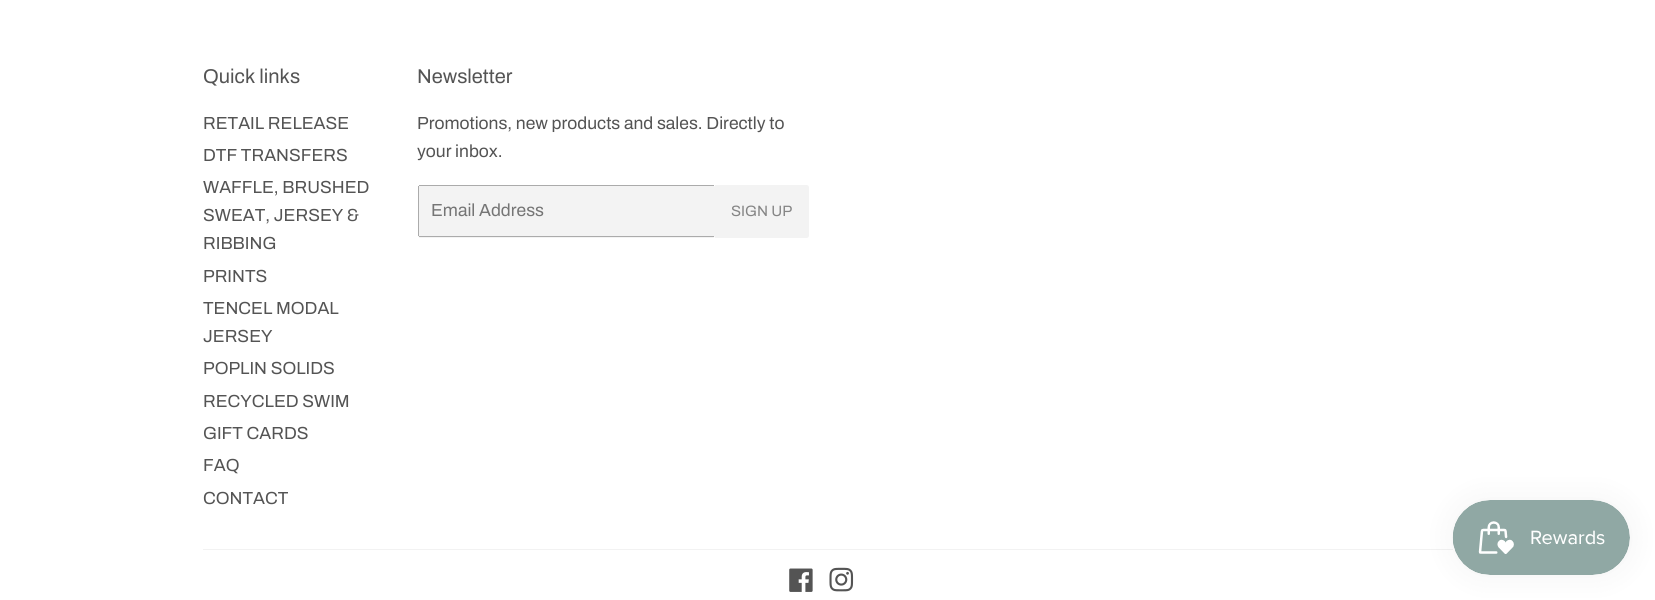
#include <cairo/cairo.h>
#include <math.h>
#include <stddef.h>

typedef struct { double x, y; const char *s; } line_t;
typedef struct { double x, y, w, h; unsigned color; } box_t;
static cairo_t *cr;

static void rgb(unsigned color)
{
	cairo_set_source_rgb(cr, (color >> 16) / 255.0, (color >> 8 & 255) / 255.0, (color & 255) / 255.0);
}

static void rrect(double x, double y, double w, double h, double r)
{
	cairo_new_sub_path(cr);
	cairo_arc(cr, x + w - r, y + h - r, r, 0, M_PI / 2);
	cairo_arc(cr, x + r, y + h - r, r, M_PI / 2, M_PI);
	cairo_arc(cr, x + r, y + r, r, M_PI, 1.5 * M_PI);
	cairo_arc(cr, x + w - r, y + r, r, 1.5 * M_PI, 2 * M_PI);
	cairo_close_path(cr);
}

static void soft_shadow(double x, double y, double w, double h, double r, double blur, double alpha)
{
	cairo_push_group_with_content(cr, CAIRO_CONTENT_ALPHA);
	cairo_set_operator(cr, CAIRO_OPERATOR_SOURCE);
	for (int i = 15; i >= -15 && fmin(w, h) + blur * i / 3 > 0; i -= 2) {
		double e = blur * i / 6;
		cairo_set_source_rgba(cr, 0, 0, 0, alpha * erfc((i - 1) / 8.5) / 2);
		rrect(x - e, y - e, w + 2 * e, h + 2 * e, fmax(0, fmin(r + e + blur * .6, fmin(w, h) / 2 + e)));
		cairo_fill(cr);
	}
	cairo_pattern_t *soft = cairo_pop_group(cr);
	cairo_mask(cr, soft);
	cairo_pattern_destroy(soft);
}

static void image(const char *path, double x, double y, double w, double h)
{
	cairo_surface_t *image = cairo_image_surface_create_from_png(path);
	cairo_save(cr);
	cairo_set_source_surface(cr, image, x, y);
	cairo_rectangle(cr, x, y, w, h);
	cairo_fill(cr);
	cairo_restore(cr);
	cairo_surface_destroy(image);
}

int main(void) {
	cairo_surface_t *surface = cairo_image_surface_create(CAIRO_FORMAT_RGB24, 1655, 600);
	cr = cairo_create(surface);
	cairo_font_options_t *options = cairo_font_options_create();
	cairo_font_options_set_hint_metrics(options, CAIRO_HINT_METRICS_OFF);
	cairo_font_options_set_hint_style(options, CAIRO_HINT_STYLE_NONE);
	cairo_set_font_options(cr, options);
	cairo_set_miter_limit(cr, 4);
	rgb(0xffffff);
	cairo_paint(cr);
	rgb(0xf3f3f3);
	rrect(418, 185, 297, 53, 2.5);
	cairo_fill(cr);
	{
		static const box_t items[] = {
			{419, 185, 295, 1, 0xababab},
			{419, 236, 295, 1, 0xababab},
			{418, 186, 1, 50, 0xababab},
		};
		for (size_t i = 0; i < sizeof items / sizeof *items; i++) {
			rgb(items[i].color);
			cairo_rectangle(cr, items[i].x, items[i].y, items[i].w, items[i].h);
			cairo_fill(cr);
		}
	}
	rgb(0xf3f3f3);
	cairo_new_path(cr);
	cairo_move_to(cr, 715, 185);
	cairo_line_to(cr, 806.5, 185);
	cairo_curve_to(cr, 808, 185, 809, 186, 809, 187.5);
	cairo_line_to(cr, 809, 235.5);
	cairo_curve_to(cr, 809, 237, 808, 238, 806.5, 238);
	cairo_line_to(cr, 715, 238);
	cairo_close_path(cr);
	cairo_fill(cr);
	rgb(0xf2f2f2);
	cairo_rectangle(cr, 203, 549, 1250, 1);
	cairo_fill(cr);
	image("img/1.png", 789, 568, 24, 24);
	image("img/2.png", 829, 567, 25, 25);
	rgb(0x000000);
	soft_shadow(1453, 500, 177, 75, 37.5, 15.5, 0.05);
	image("img/3.png", 1452, 500, 178, 75);
	cairo_select_font_face(cr, "Archivo", CAIRO_FONT_SLANT_NORMAL, CAIRO_FONT_WEIGHT_NORMAL);
	cairo_set_font_size(cr, 20);
	rgb(0x545454);
	cairo_move_to(cr, 203, 83);
	cairo_show_text(cr, "Quick links");
	cairo_set_font_size(cr, 17.5);
	{
		static const line_t items[] = {
			{203, 129, "RETAIL RELEASE"},
			{203, 161, "DTF TRANSFERS"},
			{203, 193, "WAFFLE, BRUSHED"},
			{203, 221, "SWEAT, JERSEY &"},
			{203, 249, "RIBBING"},
			{203, 282, "PRINTS"},
			{203, 314, "TENCEL MODAL"},
			{203, 342, "JERSEY"},
			{203, 374, "POPLIN SOLIDS"},
			{203, 407, "RECYCLED SWIM"},
			{203, 439, "GIFT CARDS"},
			{203, 471, "FAQ"},
			{203, 504, "CONTACT"},
		};
		for (size_t i = 0; i < sizeof items / sizeof *items; i++) {
			cairo_move_to(cr, items[i].x, items[i].y);
			cairo_show_text(cr, items[i].s);
		}
	}
	cairo_set_font_size(cr, 20);
	cairo_move_to(cr, 417, 83);
	cairo_show_text(cr, "Newsletter");
	cairo_set_font_size(cr, 17.5);
	cairo_move_to(cr, 417, 129);
	cairo_show_text(cr, "Promotions, new products and sales. Directly to");
	cairo_move_to(cr, 417, 157);
	cairo_show_text(cr, "your inbox.");
	rgb(0x757575);
	cairo_move_to(cr, 431, 216);
	cairo_show_text(cr, "Email Address");
	cairo_set_font_size(cr, 15);
	rgb(0x858585);
	cairo_move_to(cr, 731, 216);
	cairo_show_text(cr, "SIGN UP");
	cairo_surface_write_to_png(surface, "page.png");
	cairo_font_options_destroy(options);
	cairo_destroy(cr);
	cairo_surface_destroy(surface);
	return 0;
}
